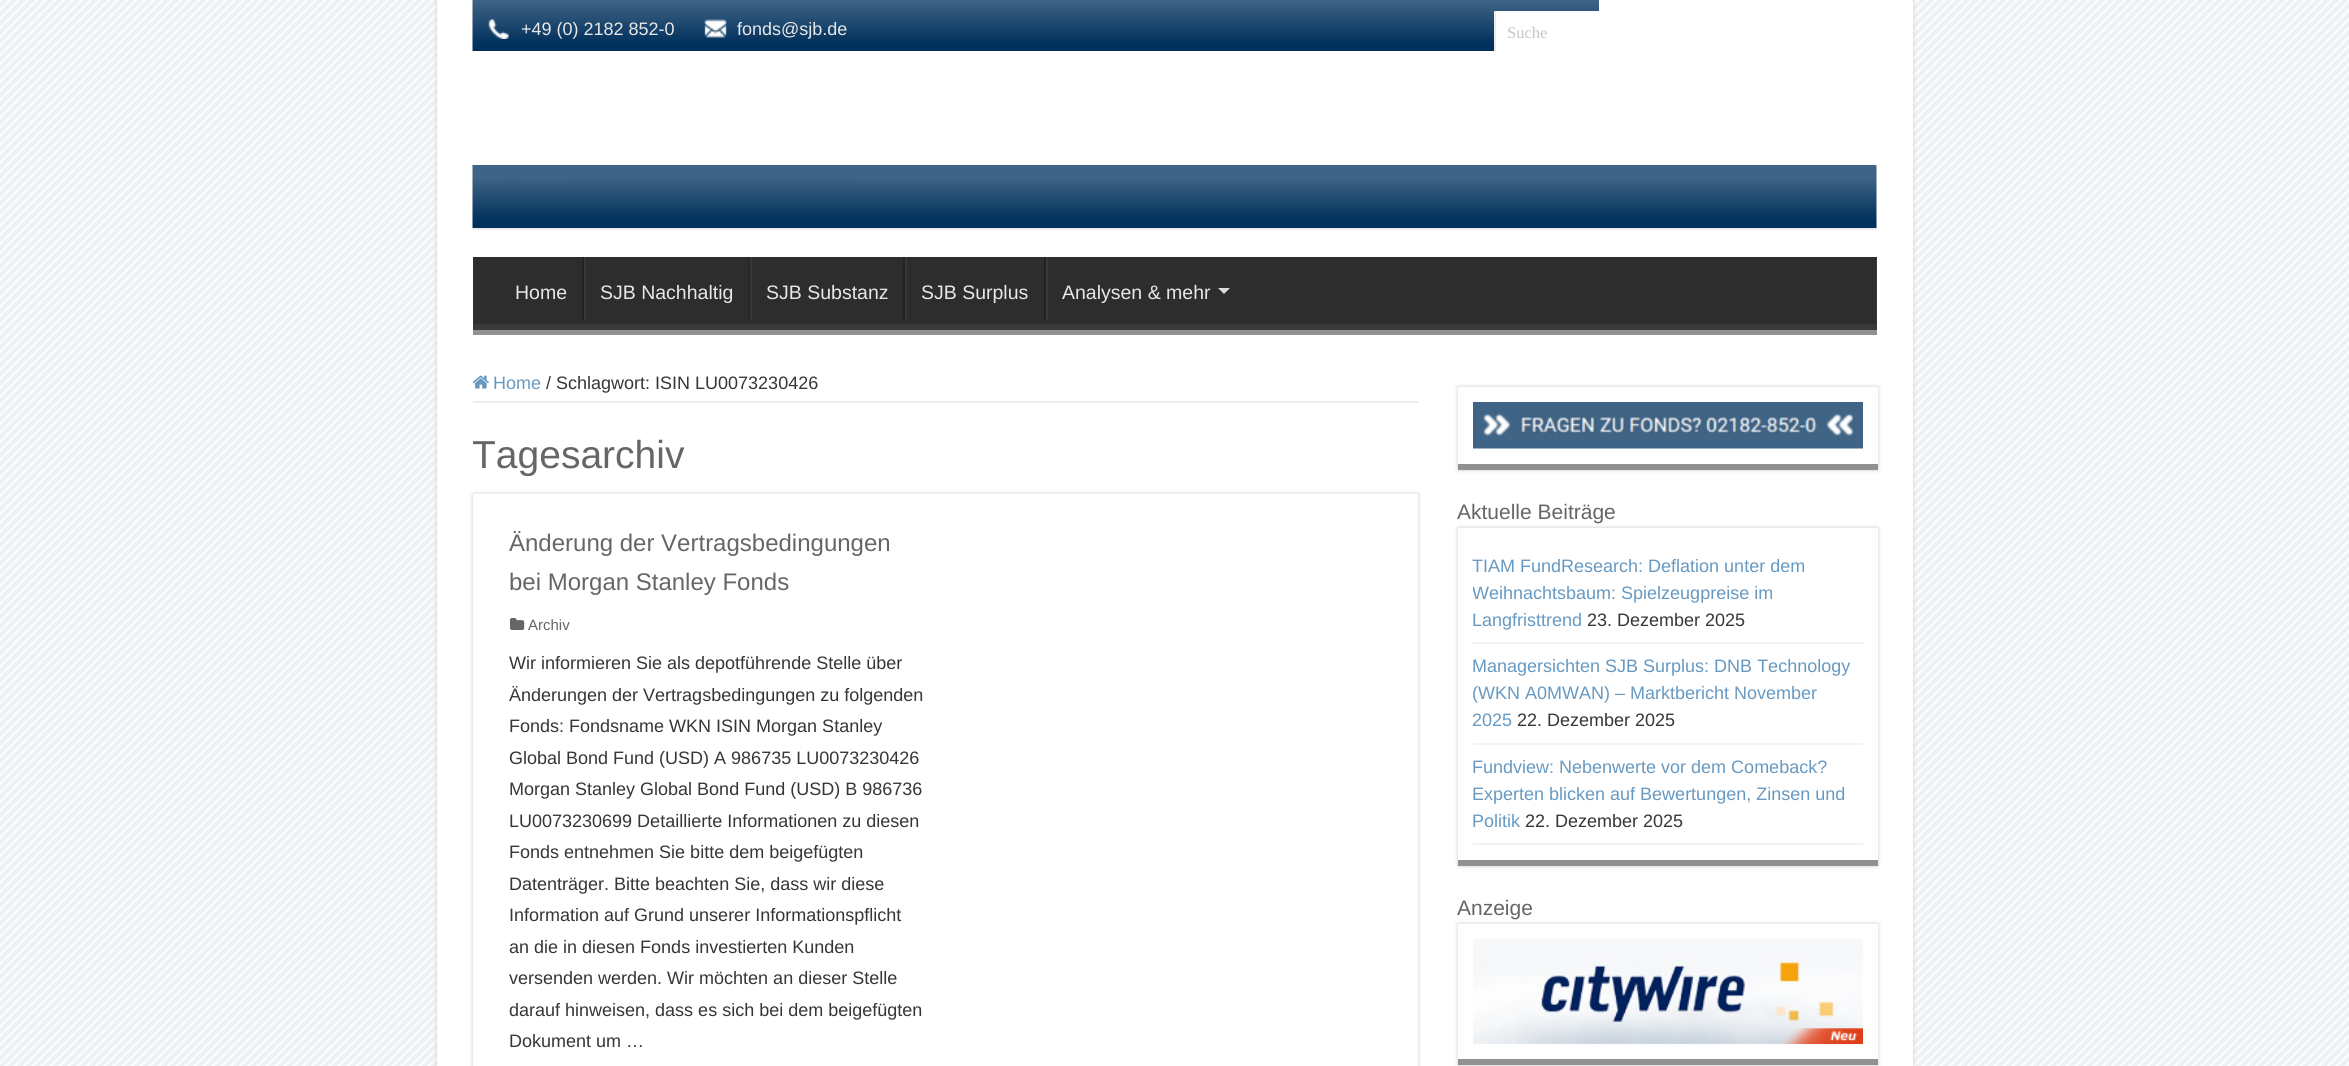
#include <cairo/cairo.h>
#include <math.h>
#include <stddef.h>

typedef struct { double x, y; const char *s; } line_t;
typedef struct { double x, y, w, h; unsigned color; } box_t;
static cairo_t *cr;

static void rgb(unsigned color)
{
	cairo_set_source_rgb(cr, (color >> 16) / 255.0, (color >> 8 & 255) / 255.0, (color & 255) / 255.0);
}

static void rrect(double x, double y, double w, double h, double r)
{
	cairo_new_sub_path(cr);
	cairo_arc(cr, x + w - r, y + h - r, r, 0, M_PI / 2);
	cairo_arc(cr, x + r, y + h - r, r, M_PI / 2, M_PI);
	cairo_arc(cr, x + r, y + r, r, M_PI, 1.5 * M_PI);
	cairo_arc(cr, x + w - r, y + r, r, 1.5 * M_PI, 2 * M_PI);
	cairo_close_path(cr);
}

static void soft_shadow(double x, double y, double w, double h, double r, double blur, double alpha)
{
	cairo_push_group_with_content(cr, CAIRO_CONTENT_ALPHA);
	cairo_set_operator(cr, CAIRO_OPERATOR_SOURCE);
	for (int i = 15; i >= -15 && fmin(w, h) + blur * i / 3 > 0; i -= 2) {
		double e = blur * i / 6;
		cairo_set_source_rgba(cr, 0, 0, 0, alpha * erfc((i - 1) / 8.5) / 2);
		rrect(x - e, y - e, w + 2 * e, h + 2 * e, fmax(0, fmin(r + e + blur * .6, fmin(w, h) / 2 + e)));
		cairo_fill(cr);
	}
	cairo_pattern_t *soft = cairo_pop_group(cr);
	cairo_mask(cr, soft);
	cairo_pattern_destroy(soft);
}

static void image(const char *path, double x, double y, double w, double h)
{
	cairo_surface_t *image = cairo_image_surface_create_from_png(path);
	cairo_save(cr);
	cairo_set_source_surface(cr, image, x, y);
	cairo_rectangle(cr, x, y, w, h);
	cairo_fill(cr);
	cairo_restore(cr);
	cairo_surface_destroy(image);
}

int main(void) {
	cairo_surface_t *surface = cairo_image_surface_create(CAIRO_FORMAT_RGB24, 2349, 1066);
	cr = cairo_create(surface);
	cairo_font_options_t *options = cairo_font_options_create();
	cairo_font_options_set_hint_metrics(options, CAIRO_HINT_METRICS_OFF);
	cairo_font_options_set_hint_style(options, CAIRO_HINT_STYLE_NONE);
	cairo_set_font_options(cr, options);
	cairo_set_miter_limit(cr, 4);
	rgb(0xffffff);
	cairo_paint(cr);
	image("img/1.png", 0, 0, 2349, 1066);
	rgb(0xcacaca);
	soft_shadow(437, 0, 1476, 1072, 0, 2, 1);
	rgb(0xffffff);
	cairo_rectangle(cr, 437, 0, 1476, 1066);
	cairo_fill(cr);
	image("img/2.png", 472, 165, 1405, 63);
	rgb(0xececec);
	cairo_rectangle(cr, 473, 228, 1404, 2);
	cairo_fill(cr);
	image("img/3.png", 472, 0, 1127, 51);
	image("img/4.png", 488, 19, 21, 20);
	image("img/5.png", 704, 19, 23, 19);
	{
		static const box_t items[] = {
			{1496, 11, 103, 40, 0xffffff},
			{1494, 11, 2, 40, 0xececec},
			{473, 257, 1403, 67, 0x2d2d2d},
		};
		for (size_t i = 0; i < sizeof items / sizeof *items; i++) {
			rgb(items[i].color);
			cairo_rectangle(cr, items[i].x, items[i].y, items[i].w, items[i].h);
			cairo_fill(cr);
		}
	}
	cairo_save(cr);
	cairo_rectangle(cr, 473, 257, 1404, 73);
	cairo_clip(cr);
	rgb(0x393939);
	cairo_set_fill_rule(cr, CAIRO_FILL_RULE_EVEN_ODD);
	cairo_new_path(cr);
	cairo_move_to(cr, 324, 108);
	cairo_line_to(cr, 2025, 108);
	cairo_line_to(cr, 2025, 478);
	cairo_line_to(cr, 324, 478);
	cairo_close_path(cr);
	cairo_move_to(cr, 471, 248);
	cairo_line_to(cr, 1875, 248);
	cairo_curve_to(cr, 1876, 248, 1876, 248, 1876, 249);
	cairo_line_to(cr, 1876, 322);
	cairo_curve_to(cr, 1876, 323, 1876, 324, 1875, 324);
	cairo_line_to(cr, 471, 324);
	cairo_curve_to(cr, 470, 324, 470, 323, 470, 322);
	cairo_line_to(cr, 470, 249);
	cairo_curve_to(cr, 470, 248, 470, 248, 471, 248);
	cairo_close_path(cr);
	cairo_fill(cr);
	cairo_restore(cr);
	{
		static const box_t items[] = {
			{473, 330, 1404, 5, 0x919191},
			{582, 257, 2, 63, 0x222222},
			{584, 257, 2, 63, 0x383838},
			{749, 257, 1, 63, 0x222222},
			{750, 257, 2, 63, 0x383838},
			{903, 257, 2, 63, 0x222222},
			{905, 257, 2, 63, 0x383838},
			{1044, 257, 2, 63, 0x222222},
			{1046, 257, 2, 63, 0x383838},
		};
		for (size_t i = 0; i < sizeof items / sizeof *items; i++) {
			rgb(items[i].color);
			cairo_rectangle(cr, items[i].x, items[i].y, items[i].w, items[i].h);
			cairo_fill(cr);
		}
	}
	rgb(0xdddddd);
	cairo_new_path(cr);
	cairo_move_to(cr, 1218, 288);
	cairo_line_to(cr, 1230, 288);
	cairo_line_to(cr, 1224, 294);
	cairo_close_path(cr);
	cairo_fill(cr);
	rgb(0xeeeeee);
	cairo_rectangle(cr, 473, 401, 945, 2);
	cairo_fill(cr);
	image("img/6.png", 472, 375, 17, 14);
	rgb(0xcacaca);
	soft_shadow(473, 494, 945, 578, 0, 2, 1);
	rgb(0xffffff);
	cairo_rectangle(cr, 473, 494, 945, 572);
	cairo_fill(cr);
	image("img/7.png", 510, 618, 15, 12);
	rgb(0xcacaca);
	soft_shadow(1458, 387, 420, 83, 0, 2, 1);
	rgb(0xffffff);
	cairo_rectangle(cr, 1458, 387, 420, 77);
	cairo_fill(cr);
	rgb(0x919191);
	cairo_rectangle(cr, 1458, 464, 420, 6);
	cairo_fill(cr);
	image("img/8.png", 1473, 402, 390, 47);
	rgb(0xcacaca);
	soft_shadow(1458, 528, 420, 338, 0, 2, 1);
	{
		static const box_t items[] = {
			{1458, 528, 420, 332, 0xffffff},
			{1458, 860, 420, 6, 0x919191},
			{1473, 642, 390, 2, 0xf2f2f2},
			{1473, 743, 390, 2, 0xf2f2f2},
			{1473, 843, 390, 2, 0xf2f2f2},
		};
		for (size_t i = 0; i < sizeof items / sizeof *items; i++) {
			rgb(items[i].color);
			cairo_rectangle(cr, items[i].x, items[i].y, items[i].w, items[i].h);
			cairo_fill(cr);
		}
	}
	cairo_save(cr);
	cairo_set_fill_rule(cr, CAIRO_FILL_RULE_EVEN_ODD);
	cairo_new_path(cr);
	cairo_move_to(cr, 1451, 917);
	cairo_line_to(cr, 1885, 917);
	cairo_line_to(cr, 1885, 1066);
	cairo_line_to(cr, 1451, 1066);
	cairo_close_path(cr);
	cairo_move_to(cr, 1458, 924);
	cairo_line_to(cr, 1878, 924);
	cairo_line_to(cr, 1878, 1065);
	cairo_line_to(cr, 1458, 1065);
	cairo_close_path(cr);
	cairo_clip(cr);
	rgb(0xcacaca);
	soft_shadow(1458, 924, 420, 141, 0, 2, 1);
	cairo_restore(cr);
	rgb(0x919191);
	cairo_rectangle(cr, 1458, 1059, 420, 6);
	cairo_fill(cr);
	image("img/9.png", 1473, 939, 390, 105);
	cairo_select_font_face(cr, "Liberation Sans", CAIRO_FONT_SLANT_NORMAL, CAIRO_FONT_WEIGHT_NORMAL);
	cairo_set_font_size(cr, 18);
	rgb(0xe8e8e8);
	cairo_move_to(cr, 521, 35);
	cairo_show_text(cr, "+49 (0) 2182 852-0");
	cairo_move_to(cr, 737, 35);
	cairo_show_text(cr, "fonds@sjb.de");
	cairo_select_font_face(cr, "Liberation Serif", CAIRO_FONT_SLANT_NORMAL, CAIRO_FONT_WEIGHT_NORMAL);
	cairo_set_font_size(cr, 16.5);
	rgb(0xc5c5c5);
	cairo_move_to(cr, 1507, 38);
	cairo_show_text(cr, "Suche");
	cairo_select_font_face(cr, "Liberation Sans", CAIRO_FONT_SLANT_NORMAL, CAIRO_FONT_WEIGHT_NORMAL);
	cairo_set_font_size(cr, 19.5);
	rgb(0xe8e8e8);
	{
		static const line_t items[] = {
			{515, 299, "Home"},
			{600, 299, "SJB Nachhaltig"},
			{766, 299, "SJB Substanz"},
			{921, 299, "SJB Surplus"},
			{1062, 299, "Analysen & mehr"},
		};
		for (size_t i = 0; i < sizeof items / sizeof *items; i++) {
			cairo_move_to(cr, items[i].x, items[i].y);
			cairo_show_text(cr, items[i].s);
		}
	}
	cairo_set_font_size(cr, 18);
	rgb(0x6699c2);
	cairo_move_to(cr, 493, 389);
	cairo_show_text(cr, "Home");
	rgb(0x383438);
	cairo_move_to(cr, 546, 389);
	cairo_show_text(cr, "/");
	cairo_move_to(cr, 556, 389);
	cairo_show_text(cr, "Schlagwort: ISIN LU0073230426");
	cairo_save(cr);
	cairo_rectangle(cr, 473, 417, 945, 77);
	cairo_clip(cr);
	cairo_set_font_size(cr, 39);
	rgb(0x666666);
	cairo_move_to(cr, 472, 468);
	cairo_show_text(cr, "Tagesarchiv");
	cairo_restore(cr);
	cairo_set_font_size(cr, 24);
	rgb(0x666666);
	cairo_move_to(cr, 509, 551);
	cairo_show_text(cr, "Änderung der Vertragsbedingungen");
	cairo_move_to(cr, 509, 590);
	cairo_show_text(cr, "bei Morgan Stanley Fonds");
	cairo_set_font_size(cr, 15);
	cairo_move_to(cr, 528, 630);
	cairo_show_text(cr, "Archiv");
	cairo_set_font_size(cr, 18);
	rgb(0x383438);
	{
		static const line_t items[] = {
			{509, 669, "Wir informieren Sie als depotführende Stelle über"},
			{509, 701, "Änderungen der Vertragsbedingungen zu folgenden"},
			{509, 732, "Fonds: Fondsname WKN ISIN Morgan Stanley"},
			{509, 764, "Global Bond Fund (USD) A 986735 LU0073230426"},
			{509, 795, "Morgan Stanley Global Bond Fund (USD) B 986736"},
			{509, 827, "LU0073230699 Detaillierte Informationen zu diesen"},
			{509, 858, "Fonds entnehmen Sie bitte dem beigefügten"},
			{509, 890, "Datenträger. Bitte beachten Sie, dass wir diese"},
			{509, 921, "Information auf Grund unserer Informationspflicht"},
			{509, 953, "an die in diesen Fonds investierten Kunden"},
			{509, 984, "versenden werden. Wir möchten an dieser Stelle"},
			{509, 1016, "darauf hinweisen, dass es sich bei dem beigefügten"},
			{509, 1047, "Dokument um …"},
		};
		for (size_t i = 0; i < sizeof items / sizeof *items; i++) {
			cairo_move_to(cr, items[i].x, items[i].y);
			cairo_show_text(cr, items[i].s);
		}
	}
	cairo_set_font_size(cr, 21);
	rgb(0x666666);
	cairo_move_to(cr, 1457, 519);
	cairo_show_text(cr, "Aktuelle Beiträge");
	cairo_set_font_size(cr, 18);
	rgb(0x6699c2);
	cairo_move_to(cr, 1472, 572);
	cairo_show_text(cr, "TIAM FundResearch: Deflation unter dem");
	cairo_save(cr);
	cairo_rectangle(cr, 1473, 543, 390, 99);
	cairo_clip(cr);
	cairo_move_to(cr, 1472, 599);
	cairo_show_text(cr, "Weihnachtsbaum: Spielzeugpreise im");
	cairo_restore(cr);
	cairo_move_to(cr, 1472, 626);
	cairo_show_text(cr, "Langfristtrend");
	rgb(0x383438);
	cairo_move_to(cr, 1587, 626);
	cairo_show_text(cr, "23. Dezember 2025");
	rgb(0x6699c2);
	{
		static const line_t items[] = {
			{1472, 672, "Managersichten SJB Surplus: DNB Technology"},
			{1472, 699, "(WKN A0MWAN) – Marktbericht November"},
			{1472, 726, "2025"},
		};
		for (size_t i = 0; i < sizeof items / sizeof *items; i++) {
			cairo_move_to(cr, items[i].x, items[i].y);
			cairo_show_text(cr, items[i].s);
		}
	}
	rgb(0x383438);
	cairo_move_to(cr, 1517, 726);
	cairo_show_text(cr, "22. Dezember 2025");
	rgb(0x6699c2);
	{
		static const line_t items[] = {
			{1472, 773, "Fundview: Nebenwerte vor dem Comeback?"},
			{1472, 800, "Experten blicken auf Bewertungen, Zinsen und"},
			{1472, 827, "Politik"},
		};
		for (size_t i = 0; i < sizeof items / sizeof *items; i++) {
			cairo_move_to(cr, items[i].x, items[i].y);
			cairo_show_text(cr, items[i].s);
		}
	}
	rgb(0x383438);
	cairo_move_to(cr, 1525, 827);
	cairo_show_text(cr, "22. Dezember 2025");
	cairo_set_font_size(cr, 21);
	rgb(0x666666);
	cairo_move_to(cr, 1457, 915);
	cairo_show_text(cr, "Anzeige");
	cairo_surface_write_to_png(surface, "page.png");
	cairo_font_options_destroy(options);
	cairo_destroy(cr);
	cairo_surface_destroy(surface);
	return 0;
}
